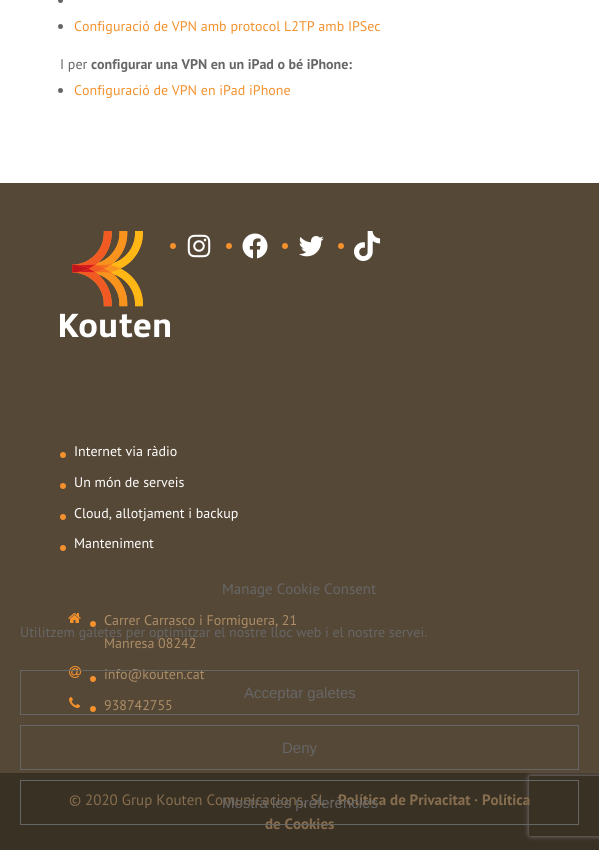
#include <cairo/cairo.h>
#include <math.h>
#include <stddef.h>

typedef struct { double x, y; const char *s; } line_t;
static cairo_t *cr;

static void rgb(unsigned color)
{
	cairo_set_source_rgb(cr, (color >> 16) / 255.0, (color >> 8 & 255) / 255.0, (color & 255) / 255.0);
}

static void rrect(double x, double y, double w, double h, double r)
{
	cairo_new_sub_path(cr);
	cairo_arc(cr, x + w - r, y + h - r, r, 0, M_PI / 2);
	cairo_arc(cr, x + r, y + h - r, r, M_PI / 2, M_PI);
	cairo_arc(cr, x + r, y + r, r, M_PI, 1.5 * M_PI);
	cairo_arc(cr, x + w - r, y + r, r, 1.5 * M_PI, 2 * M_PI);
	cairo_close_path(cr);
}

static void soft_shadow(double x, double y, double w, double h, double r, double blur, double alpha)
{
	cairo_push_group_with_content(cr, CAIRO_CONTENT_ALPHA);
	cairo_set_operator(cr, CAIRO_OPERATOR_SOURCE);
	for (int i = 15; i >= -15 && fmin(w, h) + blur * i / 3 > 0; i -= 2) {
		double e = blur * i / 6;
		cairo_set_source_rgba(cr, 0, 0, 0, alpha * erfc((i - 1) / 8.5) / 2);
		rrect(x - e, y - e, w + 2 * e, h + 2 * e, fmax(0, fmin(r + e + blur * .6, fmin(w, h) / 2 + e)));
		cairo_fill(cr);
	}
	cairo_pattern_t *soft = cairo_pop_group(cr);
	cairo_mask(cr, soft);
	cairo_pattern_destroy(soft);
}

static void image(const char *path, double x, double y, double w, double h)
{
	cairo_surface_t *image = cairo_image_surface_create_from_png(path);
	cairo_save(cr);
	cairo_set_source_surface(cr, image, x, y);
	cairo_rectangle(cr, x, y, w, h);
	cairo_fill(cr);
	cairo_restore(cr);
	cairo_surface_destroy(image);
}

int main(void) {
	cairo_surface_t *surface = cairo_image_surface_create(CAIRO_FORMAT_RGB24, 599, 850);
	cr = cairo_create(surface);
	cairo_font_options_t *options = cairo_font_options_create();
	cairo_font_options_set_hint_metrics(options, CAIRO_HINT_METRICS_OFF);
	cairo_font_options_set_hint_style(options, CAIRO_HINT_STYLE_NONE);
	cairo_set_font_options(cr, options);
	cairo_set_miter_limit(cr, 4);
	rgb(0xffffff);
	cairo_paint(cr);
	rgb(0x666666);
	cairo_arc(cr, 60.5, 0.5, 2.5, 0, 2 * M_PI);
	cairo_fill(cr);
	cairo_arc(cr, 60.5, 26.5, 2.5, 0, 2 * M_PI);
	cairo_fill(cr);
	cairo_arc(cr, 60.5, 90.5, 2.5, 0, 2 * M_PI);
	cairo_fill(cr);
	rgb(0x564836);
	cairo_rectangle(cr, 0, 183, 599, 590);
	cairo_fill(cr);
	image("img/1.png", 60, 231, 110, 107);
	rgb(0xf4912d);
	cairo_arc(cr, 173, 246, 3, 0, 2 * M_PI);
	cairo_fill(cr);
	image("img/2.png", 187, 234, 24, 24);
	cairo_arc(cr, 229, 246, 3, 0, 2 * M_PI);
	cairo_fill(cr);
	image("img/3.png", 242, 233, 26, 26);
	cairo_arc(cr, 285, 246, 3, 0, 2 * M_PI);
	cairo_fill(cr);
	image("img/4.png", 299, 236, 25, 21);
	cairo_arc(cr, 341, 246, 3, 0, 2 * M_PI);
	cairo_fill(cr);
	image("img/5.png", 354, 231, 27, 30);
	cairo_arc(cr, 63, 455, 3, 0, 2 * M_PI);
	cairo_fill(cr);
	cairo_arc(cr, 63, 486, 3, 0, 2 * M_PI);
	cairo_fill(cr);
	cairo_arc(cr, 63, 517, 3, 0, 2 * M_PI);
	cairo_fill(cr);
	cairo_arc(cr, 63, 548, 3, 0, 2 * M_PI);
	cairo_fill(cr);
	image("img/6.png", 68, 613, 13, 10);
	cairo_arc(cr, 93, 624, 3, 0, 2 * M_PI);
	cairo_fill(cr);
	image("img/7.png", 69, 666, 12, 12);
	cairo_arc(cr, 93, 679, 3, 0, 2 * M_PI);
	cairo_fill(cr);
	image("img/8.png", 69, 697, 11, 11);
	cairo_arc(cr, 93, 709, 3, 0, 2 * M_PI);
	cairo_fill(cr);
	rgb(0x3a3125);
	cairo_rectangle(cr, 0, 773, 599, 77);
	cairo_fill(cr);
	cairo_save(cr);
	cairo_set_fill_rule(cr, CAIRO_FILL_RULE_EVEN_ODD);
	cairo_new_path(cr);
	cairo_move_to(cr, 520, 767);
	cairo_line_to(cr, 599, 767);
	cairo_line_to(cr, 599, 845);
	cairo_line_to(cr, 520, 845);
	cairo_close_path(cr);
	cairo_move_to(cr, 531, 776);
	cairo_line_to(cr, 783, 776);
	cairo_curve_to(cr, 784, 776, 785, 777, 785, 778);
	cairo_line_to(cr, 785, 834);
	cairo_curve_to(cr, 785, 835, 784, 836, 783, 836);
	cairo_line_to(cr, 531, 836);
	cairo_curve_to(cr, 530, 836, 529, 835, 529, 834);
	cairo_line_to(cr, 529, 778);
	cairo_curve_to(cr, 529, 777, 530, 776, 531, 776);
	cairo_close_path(cr);
	cairo_clip(cr);
	rgb(0x808080);
	soft_shadow(529, 776, 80, 60, 2, 2.5, 1);
	cairo_restore(cr);
	cairo_rectangle(cr, 20.5, 725.5, 558, 44);
	rgb(0x666666);
	cairo_set_line_width(cr, 1);
	cairo_stroke(cr);
	cairo_select_font_face(cr, "PT Sans", CAIRO_FONT_SLANT_NORMAL, CAIRO_FONT_WEIGHT_NORMAL);
	cairo_set_font_size(cr, 14);
	rgb(0xf4912d);
	cairo_move_to(cr, 74, 31);
	cairo_show_text(cr, "Configuració de VPN amb protocol L2TP amb IPSec");
	rgb(0x666666);
	cairo_move_to(cr, 60, 69);
	cairo_show_text(cr, "I per");
	cairo_select_font_face(cr, "PT Sans", CAIRO_FONT_SLANT_NORMAL, CAIRO_FONT_WEIGHT_BOLD);
	cairo_move_to(cr, 91, 69);
	cairo_show_text(cr, "configurar una VPN en un iPad o bé iPhone:");
	cairo_select_font_face(cr, "PT Sans", CAIRO_FONT_SLANT_NORMAL, CAIRO_FONT_WEIGHT_NORMAL);
	rgb(0xf4912d);
	cairo_move_to(cr, 74, 95);
	cairo_show_text(cr, "Configuració de VPN en iPad iPhone");
	rgb(0xffffff);
	{
		static const line_t items[] = {
			{74, 456, "Internet via ràdio"},
			{74, 487, "Un món de serveis"},
			{74, 518, "Cloud, allotjament i backup"},
			{74, 548, "Manteniment"},
		};
		for (size_t i = 0; i < sizeof items / sizeof *items; i++) {
			cairo_move_to(cr, items[i].x, items[i].y);
			cairo_show_text(cr, items[i].s);
		}
	}
	rgb(0xac8d67);
	{
		static const line_t items[] = {
			{104, 625, "Carrer Carrasco i Formiguera, 21"},
			{104, 648, "Manresa 08242"},
			{104, 679, "info@kouten.cat"},
			{104, 710, "938742755"},
		};
		for (size_t i = 0; i < sizeof items / sizeof *items; i++) {
			cairo_move_to(cr, items[i].x, items[i].y);
			cairo_show_text(cr, items[i].s);
		}
	}
	cairo_set_font_size(cr, 15);
	rgb(0x866e4f);
	cairo_move_to(cr, 69, 805);
	cairo_show_text(cr, "© 2020 Grup Kouten Comunicacions, SL ·");
	cairo_select_font_face(cr, "PT Sans", CAIRO_FONT_SLANT_NORMAL, CAIRO_FONT_WEIGHT_BOLD);
	cairo_move_to(cr, 338, 805);
	cairo_show_text(cr, "Política de Privacitat · Política");
	cairo_move_to(cr, 265, 829);
	cairo_show_text(cr, "de Cookies");
	cairo_select_font_face(cr, "PT Sans", CAIRO_FONT_SLANT_NORMAL, CAIRO_FONT_WEIGHT_NORMAL);
	rgb(0x666666);
	cairo_move_to(cr, 222, 594);
	cairo_show_text(cr, "Manage Cookie Consent");
	cairo_set_font_size(cr, 14);
	cairo_move_to(cr, 20, 637);
	cairo_show_text(cr, "Utilitzem galetes per optimitzar el nostre lloc web i el nostre servei.");
	cairo_rectangle(cr, 20.5, 670.5, 558, 44);
	cairo_stroke(cr);
	cairo_select_font_face(cr, "Liberation Sans", CAIRO_FONT_SLANT_NORMAL, CAIRO_FONT_WEIGHT_NORMAL);
	cairo_set_font_size(cr, 15);
	cairo_move_to(cr, 244, 698);
	cairo_show_text(cr, "Acceptar galetes");
	cairo_move_to(cr, 282, 753);
	cairo_show_text(cr, "Deny");
	cairo_rectangle(cr, 20.5, 780.5, 558, 44);
	cairo_stroke(cr);
	cairo_move_to(cr, 222, 808);
	cairo_show_text(cr, "Mostra les preferències");
	cairo_surface_write_to_png(surface, "page.png");
	cairo_font_options_destroy(options);
	cairo_destroy(cr);
	cairo_surface_destroy(surface);
	return 0;
}
